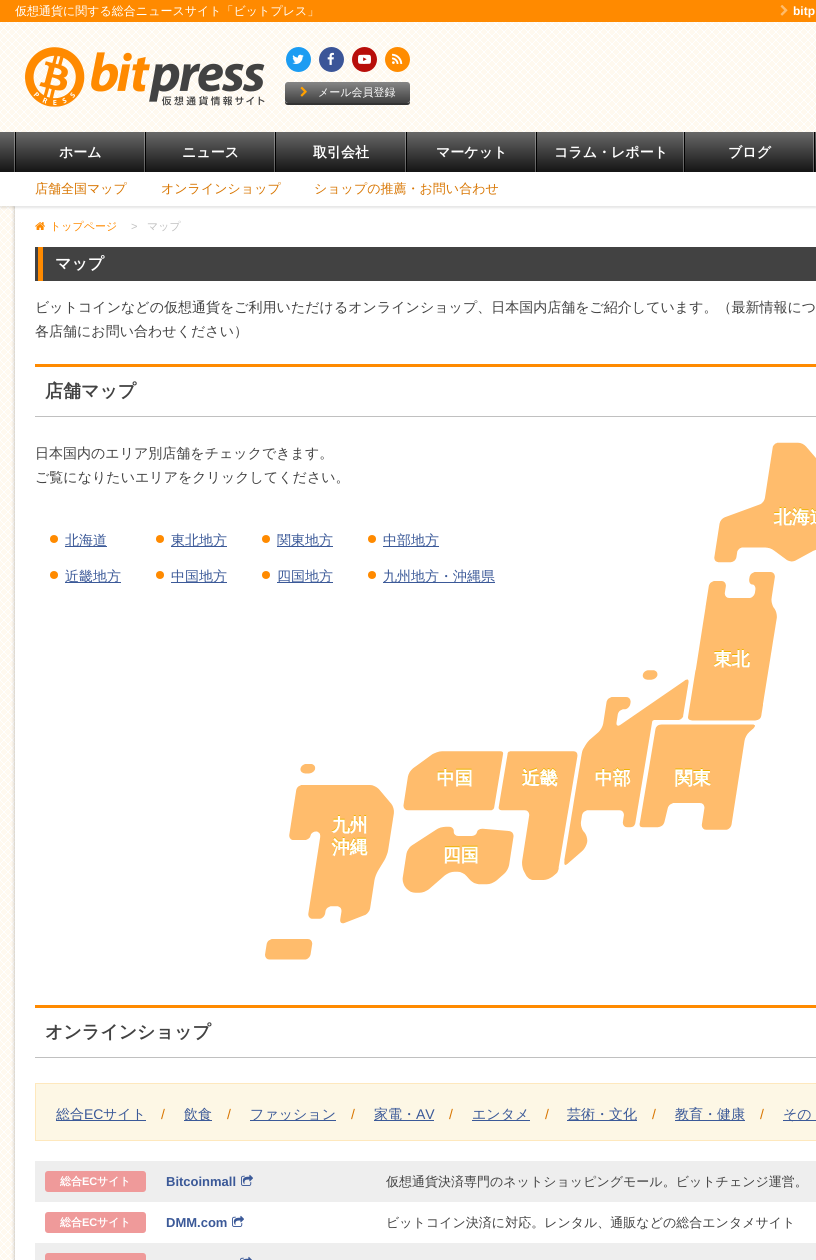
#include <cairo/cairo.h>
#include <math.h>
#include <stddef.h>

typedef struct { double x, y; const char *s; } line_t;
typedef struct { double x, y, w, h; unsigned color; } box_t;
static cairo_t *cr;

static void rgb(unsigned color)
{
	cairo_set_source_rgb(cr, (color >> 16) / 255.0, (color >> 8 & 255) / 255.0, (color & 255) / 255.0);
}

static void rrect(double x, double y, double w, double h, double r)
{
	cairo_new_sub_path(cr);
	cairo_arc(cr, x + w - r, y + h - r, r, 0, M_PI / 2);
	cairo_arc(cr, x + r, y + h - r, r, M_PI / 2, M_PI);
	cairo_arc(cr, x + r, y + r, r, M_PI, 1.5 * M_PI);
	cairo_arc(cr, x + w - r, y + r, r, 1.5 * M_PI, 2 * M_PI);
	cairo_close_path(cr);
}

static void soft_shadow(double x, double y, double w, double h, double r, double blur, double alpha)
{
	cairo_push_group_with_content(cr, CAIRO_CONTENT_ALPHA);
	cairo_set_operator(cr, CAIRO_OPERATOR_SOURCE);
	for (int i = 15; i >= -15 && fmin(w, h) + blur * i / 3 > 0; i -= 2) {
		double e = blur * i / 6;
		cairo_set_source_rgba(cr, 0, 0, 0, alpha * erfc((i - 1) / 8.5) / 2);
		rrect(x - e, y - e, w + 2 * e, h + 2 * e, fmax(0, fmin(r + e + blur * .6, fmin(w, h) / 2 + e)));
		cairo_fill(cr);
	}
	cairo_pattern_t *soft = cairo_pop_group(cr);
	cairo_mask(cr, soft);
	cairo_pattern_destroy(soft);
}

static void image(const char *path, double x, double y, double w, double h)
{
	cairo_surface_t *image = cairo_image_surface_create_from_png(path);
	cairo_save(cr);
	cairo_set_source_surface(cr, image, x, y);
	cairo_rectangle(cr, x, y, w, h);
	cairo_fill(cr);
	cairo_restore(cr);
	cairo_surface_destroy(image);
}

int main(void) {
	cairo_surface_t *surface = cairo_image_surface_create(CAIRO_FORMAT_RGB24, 816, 1260);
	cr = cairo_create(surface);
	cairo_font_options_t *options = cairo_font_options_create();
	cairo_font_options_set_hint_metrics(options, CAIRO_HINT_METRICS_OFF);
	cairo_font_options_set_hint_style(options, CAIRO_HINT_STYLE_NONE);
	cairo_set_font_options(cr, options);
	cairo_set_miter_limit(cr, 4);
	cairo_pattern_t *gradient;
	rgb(0xffffff);
	cairo_paint(cr);
	image("img/1.png", 0, 22, 816, 1238);
	rgb(0xff8a00);
	cairo_rectangle(cr, 0, 0, 816, 22);
	cairo_fill(cr);
	image("img/2.png", 780, 5, 8, 11);
	image("img/3.png", 25, 47, 240, 60);
	rgb(0x1c9cf2);
	cairo_arc(cr, 298.5, 59.5, 12.5, 0, 2 * M_PI);
	cairo_fill(cr);
	image("img/4.png", 292, 54, 12, 10);
	rgb(0x3b5598);
	cairo_arc(cr, 331.5, 59.5, 12.5, 0, 2 * M_PI);
	cairo_fill(cr);
	image("img/5.png", 327, 52, 7, 13);
	rgb(0xb80e0a);
	cairo_arc(cr, 364.5, 59.5, 12.5, 0, 2 * M_PI);
	cairo_fill(cr);
	image("img/6.png", 358, 54, 13, 10);
	rgb(0xff8c00);
	cairo_arc(cr, 397.5, 59.5, 12.5, 0, 2 * M_PI);
	cairo_fill(cr);
	image("img/7.png", 392, 53, 11, 11);
	rgb(0x333333);
	cairo_new_path(cr);
	cairo_move_to(cr, 285, 100);
	cairo_line_to(cr, 285, 102);
	cairo_curve_to(cr, 285, 104, 286, 105, 288, 105);
	cairo_line_to(cr, 407, 105);
	cairo_curve_to(cr, 409, 105, 410, 104, 410, 102);
	cairo_line_to(cr, 410, 100);
	cairo_curve_to(cr, 410, 102, 409, 103, 407, 103);
	cairo_line_to(cr, 288, 103);
	cairo_curve_to(cr, 286, 103, 285, 102, 285, 100);
	cairo_close_path(cr);
	cairo_fill(cr);
	gradient = cairo_pattern_create_linear(348, 82, 348, 103);
	cairo_pattern_add_color_stop_rgba(gradient, 0, 0.525, 0.525, 0.525, 1);
	cairo_pattern_add_color_stop_rgba(gradient, 1, 0.251, 0.251, 0.251, 1);
	cairo_set_source(cr, gradient);
	cairo_pattern_destroy(gradient);
	rrect(285, 82, 125, 21, 3);
	cairo_fill(cr);
	image("img/8.png", 300, 86, 7, 11);
	gradient = cairo_pattern_create_linear(408, 132, 408, 172);
	cairo_pattern_add_color_stop_rgba(gradient, 0, 0.408, 0.408, 0.408, 1);
	cairo_pattern_add_color_stop_rgba(gradient, 0.98, 0.086, 0.086, 0.086, 1);
	cairo_set_source(cr, gradient);
	cairo_pattern_destroy(gradient);
	cairo_rectangle(cr, 0, 132, 816, 40);
	cairo_fill(cr);
	cairo_set_source_rgba(cr, 1, 1, 1, 0.3);
	cairo_rectangle(cr, 14, 132, 1, 40);
	cairo_fill(cr);
	rgb(0x000000);
	cairo_rectangle(cr, 15, 132, 1, 40);
	cairo_fill(cr);
	cairo_set_source_rgba(cr, 1, 1, 1, 0.3);
	cairo_rectangle(cr, 144, 132, 1, 40);
	cairo_fill(cr);
	rgb(0x000000);
	cairo_rectangle(cr, 145, 132, 1, 40);
	cairo_fill(cr);
	cairo_set_source_rgba(cr, 1, 1, 1, 0.3);
	cairo_rectangle(cr, 274, 132, 1, 40);
	cairo_fill(cr);
	rgb(0x000000);
	cairo_rectangle(cr, 275, 132, 1, 40);
	cairo_fill(cr);
	cairo_set_source_rgba(cr, 1, 1, 1, 0.3);
	cairo_rectangle(cr, 405, 132, 1, 40);
	cairo_fill(cr);
	rgb(0x000000);
	cairo_rectangle(cr, 406, 132, 1, 40);
	cairo_fill(cr);
	cairo_set_source_rgba(cr, 1, 1, 1, 0.3);
	cairo_rectangle(cr, 535, 132, 1, 40);
	cairo_fill(cr);
	rgb(0x000000);
	cairo_rectangle(cr, 536, 132, 1, 40);
	cairo_fill(cr);
	cairo_set_source_rgba(cr, 1, 1, 1, 0.3);
	cairo_rectangle(cr, 683, 132, 1, 40);
	cairo_fill(cr);
	rgb(0x000000);
	cairo_rectangle(cr, 684, 132, 1, 40);
	cairo_fill(cr);
	cairo_set_source_rgba(cr, 1, 1, 1, 0.3);
	cairo_rectangle(cr, 813, 132, 1, 40);
	cairo_fill(cr);
	rgb(0x000000);
	cairo_rectangle(cr, 814, 132, 1, 40);
	cairo_fill(cr);
	rgb(0x000000);
	soft_shadow(15, 206, 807, 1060, 0, 2, 0.3);
	rgb(0xffffff);
	cairo_rectangle(cr, 15, 206, 801, 1054);
	cairo_fill(cr);
	rgb(0x000000);
	soft_shadow(0, 174, 816, 34, 0, 1, 0.1);
	rgb(0xffffff);
	cairo_rectangle(cr, 0, 172, 816, 34);
	cairo_fill(cr);
	image("img/9.png", 35, 222, 10, 8);
	{
		static const box_t items[] = {
			{35, 247, 781, 34, 0x424242},
			{38, 247, 5, 34, 0xff8a00},
			{35, 364, 781, 3, 0xff8a00},
			{35, 416, 781, 1, 0xc0c0c0},
		};
		for (size_t i = 0; i < sizeof items / sizeof *items; i++) {
			rgb(items[i].color);
			cairo_rectangle(cr, items[i].x, items[i].y, items[i].w, items[i].h);
			cairo_fill(cr);
		}
	}
	image("img/10.png", 265, 442, 551, 518);
	rgb(0xff8a00);
	cairo_arc(cr, 54, 539, 4, 0, 2 * M_PI);
	cairo_fill(cr);
	rgb(0x3b5998);
	cairo_rectangle(cr, 65, 546, 42, 1);
	cairo_fill(cr);
	rgb(0xff8a00);
	cairo_arc(cr, 160, 539, 4, 0, 2 * M_PI);
	cairo_fill(cr);
	rgb(0x3b5998);
	cairo_rectangle(cr, 171, 546, 56, 1);
	cairo_fill(cr);
	rgb(0xff8a00);
	cairo_arc(cr, 266, 539, 4, 0, 2 * M_PI);
	cairo_fill(cr);
	rgb(0x3b5998);
	cairo_rectangle(cr, 277, 546, 56, 1);
	cairo_fill(cr);
	rgb(0xff8a00);
	cairo_arc(cr, 372, 539, 4, 0, 2 * M_PI);
	cairo_fill(cr);
	rgb(0x3b5998);
	cairo_rectangle(cr, 383, 546, 56, 1);
	cairo_fill(cr);
	rgb(0xff8a00);
	cairo_arc(cr, 54, 575, 4, 0, 2 * M_PI);
	cairo_fill(cr);
	rgb(0x3b5998);
	cairo_rectangle(cr, 65, 582, 56, 1);
	cairo_fill(cr);
	rgb(0xff8a00);
	cairo_arc(cr, 160, 575, 4, 0, 2 * M_PI);
	cairo_fill(cr);
	rgb(0x3b5998);
	cairo_rectangle(cr, 171, 582, 56, 1);
	cairo_fill(cr);
	rgb(0xff8a00);
	cairo_arc(cr, 266, 575, 4, 0, 2 * M_PI);
	cairo_fill(cr);
	rgb(0x3b5998);
	cairo_rectangle(cr, 277, 582, 56, 1);
	cairo_fill(cr);
	rgb(0xff8a00);
	cairo_arc(cr, 372, 575, 4, 0, 2 * M_PI);
	cairo_fill(cr);
	{
		static const box_t items[] = {
			{383, 582, 112, 1, 0x3b5998},
			{35, 1005, 781, 3, 0xff8a00},
			{35, 1057, 781, 1, 0xc0c0c0},
		};
		for (size_t i = 0; i < sizeof items / sizeof *items; i++) {
			rgb(items[i].color);
			cairo_rectangle(cr, items[i].x, items[i].y, items[i].w, items[i].h);
			cairo_fill(cr);
		}
	}
	rgb(0xfdf7e5);
	cairo_rectangle(cr, 35.5, 1083.5, 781, 57);
	cairo_fill_preserve(cr);
	rgb(0xfee8bd);
	cairo_set_line_width(cr, 1);
	cairo_stroke(cr);
	{
		static const box_t items[] = {
			{56, 1120, 90, 1, 0x3b5998},
			{184, 1120, 28, 1, 0x3b5998},
			{250, 1120, 86, 1, 0x3b5998},
			{374, 1120, 60, 1, 0x3b5998},
			{472, 1120, 58, 1, 0x3b5998},
			{567, 1120, 70, 1, 0x3b5998},
			{675, 1120, 70, 1, 0x3b5998},
			{783, 1120, 33, 1, 0x3b5998},
			{35, 1161, 781, 41, 0xeeeeee},
		};
		for (size_t i = 0; i < sizeof items / sizeof *items; i++) {
			rgb(items[i].color);
			cairo_rectangle(cr, items[i].x, items[i].y, items[i].w, items[i].h);
			cairo_fill(cr);
		}
	}
	rgb(0xef9a9a);
	rrect(45, 1171, 101, 21, 3);
	cairo_fill(cr);
	image("img/11.png", 241, 1174, 12, 12);
	rrect(45, 1212, 101, 21, 3);
	cairo_fill(cr);
	image("img/12.png", 232, 1215, 12, 12);
	rgb(0xeeeeee);
	cairo_rectangle(cr, 35, 1243, 781, 17);
	cairo_fill(cr);
	rgb(0xef9a9a);
	rrect(45, 1253, 101, 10, 3);
	cairo_fill(cr);
	image("img/13.png", 240, 1256, 12, 4);
	cairo_select_font_face(cr, "WenQuanYi Zen Hei Medium", CAIRO_FONT_SLANT_NORMAL, CAIRO_FONT_WEIGHT_NORMAL);
	cairo_set_font_size(cr, 12);
	rgb(0xffffff);
	cairo_move_to(cr, 15, 15);
	cairo_show_text(cr, "仮想通貨に関する総合ニュースサイト「ビットプレス」");
	cairo_select_font_face(cr, "Liberation Sans", CAIRO_FONT_SLANT_NORMAL, CAIRO_FONT_WEIGHT_BOLD);
	cairo_move_to(cr, 793, 15);
	cairo_show_text(cr, "bitp");
	cairo_select_font_face(cr, "WenQuanYi Zen Hei Medium", CAIRO_FONT_SLANT_NORMAL, CAIRO_FONT_WEIGHT_NORMAL);
	cairo_set_font_size(cr, 11);
	cairo_move_to(cr, 318, 96);
	cairo_show_text(cr, "メール会員登録");
	cairo_select_font_face(cr, "WenQuanYi Zen Hei", CAIRO_FONT_SLANT_NORMAL, CAIRO_FONT_WEIGHT_BOLD);
	cairo_set_font_size(cr, 14);
	{
		static const line_t items[] = {
			{59, 157, "ホーム"},
			{182, 157, "ニュース"},
			{313, 157, "取引会社"},
			{436, 157, "マーケット"},
			{554, 157, "コラム・レポート"},
			{728, 157, "ブログ"},
		};
		for (size_t i = 0; i < sizeof items / sizeof *items; i++) {
			cairo_move_to(cr, items[i].x, items[i].y);
			cairo_show_text(cr, items[i].s);
		}
	}
	cairo_select_font_face(cr, "WenQuanYi Zen Hei Medium", CAIRO_FONT_SLANT_NORMAL, CAIRO_FONT_WEIGHT_NORMAL);
	cairo_set_font_size(cr, 13);
	rgb(0xd87500);
	{
		static const line_t items[] = {
			{35, 193, "店舗全国マップ"},
			{161, 193, "オンラインショップ"},
			{314, 193, "ショップの推薦・お問い合わせ"},
		};
		for (size_t i = 0; i < sizeof items / sizeof *items; i++) {
			cairo_move_to(cr, items[i].x, items[i].y);
			cairo_show_text(cr, items[i].s);
		}
	}
	cairo_set_font_size(cr, 11);
	rgb(0xff8a00);
	cairo_move_to(cr, 50, 230);
	cairo_show_text(cr, "トップページ");
	cairo_select_font_face(cr, "Liberation Sans", CAIRO_FONT_SLANT_NORMAL, CAIRO_FONT_WEIGHT_NORMAL);
	rgb(0xc0c0c0);
	cairo_move_to(cr, 131, 230);
	cairo_show_text(cr, ">");
	cairo_select_font_face(cr, "WenQuanYi Zen Hei Medium", CAIRO_FONT_SLANT_NORMAL, CAIRO_FONT_WEIGHT_NORMAL);
	cairo_move_to(cr, 147, 230);
	cairo_show_text(cr, "マップ");
	cairo_select_font_face(cr, "WenQuanYi Zen Hei", CAIRO_FONT_SLANT_NORMAL, CAIRO_FONT_WEIGHT_BOLD);
	cairo_set_font_size(cr, 16);
	rgb(0xffffff);
	cairo_move_to(cr, 55, 269);
	cairo_show_text(cr, "マップ");
	cairo_select_font_face(cr, "WenQuanYi Zen Hei Medium", CAIRO_FONT_SLANT_NORMAL, CAIRO_FONT_WEIGHT_NORMAL);
	cairo_set_font_size(cr, 14);
	rgb(0x424242);
	cairo_move_to(cr, 35, 312);
	cairo_show_text(cr, "ビットコインなどの仮想通貨をご利用いただけるオンラインショップ、日本国内店舗をご紹介しています。（最新情報につ");
	cairo_move_to(cr, 35, 336);
	cairo_show_text(cr, "各店舗にお問い合わせください）");
	cairo_select_font_face(cr, "WenQuanYi Zen Hei", CAIRO_FONT_SLANT_NORMAL, CAIRO_FONT_WEIGHT_BOLD);
	cairo_set_font_size(cr, 18);
	cairo_move_to(cr, 45, 397);
	cairo_show_text(cr, "店舗マップ");
	cairo_select_font_face(cr, "WenQuanYi Zen Hei Medium", CAIRO_FONT_SLANT_NORMAL, CAIRO_FONT_WEIGHT_NORMAL);
	cairo_set_font_size(cr, 14);
	cairo_move_to(cr, 35, 458);
	cairo_show_text(cr, "日本国内のエリア別店舗をチェックできます。");
	cairo_move_to(cr, 35, 482);
	cairo_show_text(cr, "ご覧になりたいエリアをクリックしてください。");
	rgb(0x3b5998);
	{
		static const line_t items[] = {
			{65, 545, "北海道"},
			{171, 545, "東北地方"},
			{277, 545, "関東地方"},
			{383, 545, "中部地方"},
			{65, 581, "近畿地方"},
			{171, 581, "中国地方"},
			{277, 581, "四国地方"},
			{383, 581, "九州地方・沖縄県"},
		};
		for (size_t i = 0; i < sizeof items / sizeof *items; i++) {
			cairo_move_to(cr, items[i].x, items[i].y);
			cairo_show_text(cr, items[i].s);
		}
	}
	cairo_select_font_face(cr, "WenQuanYi Zen Hei", CAIRO_FONT_SLANT_NORMAL, CAIRO_FONT_WEIGHT_BOLD);
	cairo_set_font_size(cr, 18);
	rgb(0x424242);
	cairo_move_to(cr, 45, 1038);
	cairo_show_text(cr, "オンラインショップ");
	cairo_select_font_face(cr, "WenQuanYi Zen Hei Medium", CAIRO_FONT_SLANT_NORMAL, CAIRO_FONT_WEIGHT_NORMAL);
	cairo_set_font_size(cr, 14);
	rgb(0x3b5998);
	cairo_move_to(cr, 56, 1119);
	cairo_show_text(cr, "総合");
	cairo_select_font_face(cr, "Liberation Sans", CAIRO_FONT_SLANT_NORMAL, CAIRO_FONT_WEIGHT_NORMAL);
	cairo_move_to(cr, 84, 1119);
	cairo_show_text(cr, "EC");
	cairo_select_font_face(cr, "WenQuanYi Zen Hei Medium", CAIRO_FONT_SLANT_NORMAL, CAIRO_FONT_WEIGHT_NORMAL);
	cairo_move_to(cr, 103, 1119);
	cairo_show_text(cr, "サイト");
	cairo_select_font_face(cr, "Liberation Sans", CAIRO_FONT_SLANT_NORMAL, CAIRO_FONT_WEIGHT_NORMAL);
	rgb(0xd87500);
	cairo_move_to(cr, 161, 1119);
	cairo_show_text(cr, "/");
	cairo_select_font_face(cr, "WenQuanYi Zen Hei Medium", CAIRO_FONT_SLANT_NORMAL, CAIRO_FONT_WEIGHT_NORMAL);
	rgb(0x3b5998);
	cairo_move_to(cr, 184, 1119);
	cairo_show_text(cr, "飲食");
	cairo_select_font_face(cr, "Liberation Sans", CAIRO_FONT_SLANT_NORMAL, CAIRO_FONT_WEIGHT_NORMAL);
	rgb(0xd87500);
	cairo_move_to(cr, 227, 1119);
	cairo_show_text(cr, "/");
	cairo_select_font_face(cr, "WenQuanYi Zen Hei Medium", CAIRO_FONT_SLANT_NORMAL, CAIRO_FONT_WEIGHT_NORMAL);
	rgb(0x3b5998);
	cairo_move_to(cr, 250, 1119);
	cairo_show_text(cr, "ファッション");
	cairo_select_font_face(cr, "Liberation Sans", CAIRO_FONT_SLANT_NORMAL, CAIRO_FONT_WEIGHT_NORMAL);
	rgb(0xd87500);
	cairo_move_to(cr, 351, 1119);
	cairo_show_text(cr, "/");
	cairo_select_font_face(cr, "WenQuanYi Zen Hei Medium", CAIRO_FONT_SLANT_NORMAL, CAIRO_FONT_WEIGHT_NORMAL);
	rgb(0x3b5998);
	cairo_move_to(cr, 374, 1119);
	cairo_show_text(cr, "家電・");
	cairo_select_font_face(cr, "Liberation Sans", CAIRO_FONT_SLANT_NORMAL, CAIRO_FONT_WEIGHT_NORMAL);
	cairo_move_to(cr, 416, 1119);
	cairo_show_text(cr, "AV");
	rgb(0xd87500);
	cairo_move_to(cr, 449, 1119);
	cairo_show_text(cr, "/");
	cairo_select_font_face(cr, "WenQuanYi Zen Hei Medium", CAIRO_FONT_SLANT_NORMAL, CAIRO_FONT_WEIGHT_NORMAL);
	rgb(0x3b5998);
	cairo_move_to(cr, 472, 1119);
	cairo_show_text(cr, "エンタメ");
	cairo_select_font_face(cr, "Liberation Sans", CAIRO_FONT_SLANT_NORMAL, CAIRO_FONT_WEIGHT_NORMAL);
	rgb(0xd87500);
	cairo_move_to(cr, 545, 1119);
	cairo_show_text(cr, "/");
	cairo_select_font_face(cr, "WenQuanYi Zen Hei Medium", CAIRO_FONT_SLANT_NORMAL, CAIRO_FONT_WEIGHT_NORMAL);
	rgb(0x3b5998);
	cairo_move_to(cr, 567, 1119);
	cairo_show_text(cr, "芸術・文化");
	cairo_select_font_face(cr, "Liberation Sans", CAIRO_FONT_SLANT_NORMAL, CAIRO_FONT_WEIGHT_NORMAL);
	rgb(0xd87500);
	cairo_move_to(cr, 652, 1119);
	cairo_show_text(cr, "/");
	cairo_select_font_face(cr, "WenQuanYi Zen Hei Medium", CAIRO_FONT_SLANT_NORMAL, CAIRO_FONT_WEIGHT_NORMAL);
	rgb(0x3b5998);
	cairo_move_to(cr, 675, 1119);
	cairo_show_text(cr, "教育・健康");
	cairo_select_font_face(cr, "Liberation Sans", CAIRO_FONT_SLANT_NORMAL, CAIRO_FONT_WEIGHT_NORMAL);
	rgb(0xd87500);
	cairo_move_to(cr, 760, 1119);
	cairo_show_text(cr, "/");
	cairo_select_font_face(cr, "WenQuanYi Zen Hei Medium", CAIRO_FONT_SLANT_NORMAL, CAIRO_FONT_WEIGHT_NORMAL);
	rgb(0x3b5998);
	cairo_move_to(cr, 783, 1119);
	cairo_show_text(cr, "その");
	cairo_select_font_face(cr, "WenQuanYi Zen Hei", CAIRO_FONT_SLANT_NORMAL, CAIRO_FONT_WEIGHT_BOLD);
	cairo_set_font_size(cr, 11);
	rgb(0xffffff);
	cairo_move_to(cr, 60, 1185);
	cairo_show_text(cr, "総合");
	cairo_select_font_face(cr, "Liberation Sans", CAIRO_FONT_SLANT_NORMAL, CAIRO_FONT_WEIGHT_BOLD);
	cairo_move_to(cr, 82, 1185);
	cairo_show_text(cr, "EC");
	cairo_select_font_face(cr, "WenQuanYi Zen Hei", CAIRO_FONT_SLANT_NORMAL, CAIRO_FONT_WEIGHT_BOLD);
	cairo_move_to(cr, 97, 1185);
	cairo_show_text(cr, "サイト");
	cairo_select_font_face(cr, "Liberation Sans", CAIRO_FONT_SLANT_NORMAL, CAIRO_FONT_WEIGHT_BOLD);
	cairo_set_font_size(cr, 13);
	rgb(0x3b5998);
	cairo_move_to(cr, 166, 1186);
	cairo_show_text(cr, "Bitcoinmall");
	cairo_select_font_face(cr, "WenQuanYi Zen Hei Medium", CAIRO_FONT_SLANT_NORMAL, CAIRO_FONT_WEIGHT_NORMAL);
	rgb(0x424242);
	cairo_move_to(cr, 386, 1186);
	cairo_show_text(cr, "仮想通貨決済専門のネットショッピングモール。ビットチェンジ運営。");
	cairo_select_font_face(cr, "WenQuanYi Zen Hei", CAIRO_FONT_SLANT_NORMAL, CAIRO_FONT_WEIGHT_BOLD);
	cairo_set_font_size(cr, 11);
	rgb(0xffffff);
	cairo_move_to(cr, 60, 1226);
	cairo_show_text(cr, "総合");
	cairo_select_font_face(cr, "Liberation Sans", CAIRO_FONT_SLANT_NORMAL, CAIRO_FONT_WEIGHT_BOLD);
	cairo_move_to(cr, 82, 1226);
	cairo_show_text(cr, "EC");
	cairo_select_font_face(cr, "WenQuanYi Zen Hei", CAIRO_FONT_SLANT_NORMAL, CAIRO_FONT_WEIGHT_BOLD);
	cairo_move_to(cr, 97, 1226);
	cairo_show_text(cr, "サイト");
	cairo_select_font_face(cr, "Liberation Sans", CAIRO_FONT_SLANT_NORMAL, CAIRO_FONT_WEIGHT_BOLD);
	cairo_set_font_size(cr, 13);
	rgb(0x3b5998);
	cairo_move_to(cr, 166, 1227);
	cairo_show_text(cr, "DMM.com");
	cairo_select_font_face(cr, "WenQuanYi Zen Hei Medium", CAIRO_FONT_SLANT_NORMAL, CAIRO_FONT_WEIGHT_NORMAL);
	rgb(0x424242);
	cairo_move_to(cr, 386, 1227);
	cairo_show_text(cr, "ビットコイン決済に対応。レンタル、通販などの総合エンタメサイト");
	cairo_surface_write_to_png(surface, "page.png");
	cairo_font_options_destroy(options);
	cairo_destroy(cr);
	cairo_surface_destroy(surface);
	return 0;
}
